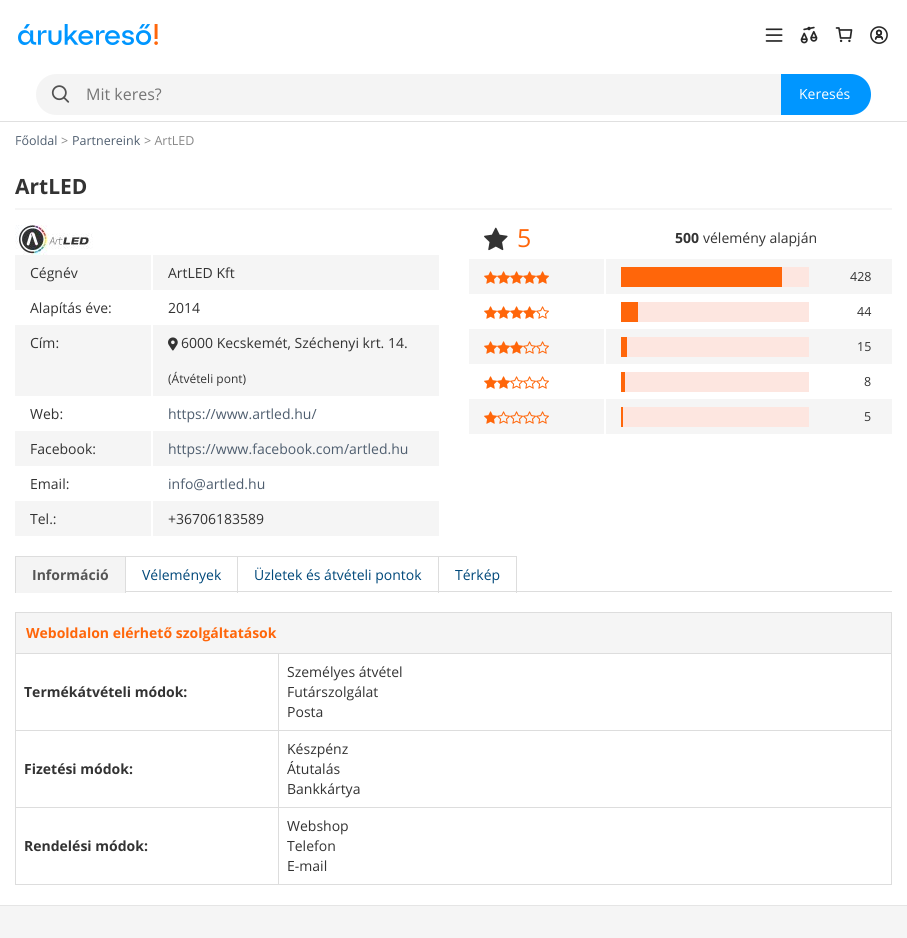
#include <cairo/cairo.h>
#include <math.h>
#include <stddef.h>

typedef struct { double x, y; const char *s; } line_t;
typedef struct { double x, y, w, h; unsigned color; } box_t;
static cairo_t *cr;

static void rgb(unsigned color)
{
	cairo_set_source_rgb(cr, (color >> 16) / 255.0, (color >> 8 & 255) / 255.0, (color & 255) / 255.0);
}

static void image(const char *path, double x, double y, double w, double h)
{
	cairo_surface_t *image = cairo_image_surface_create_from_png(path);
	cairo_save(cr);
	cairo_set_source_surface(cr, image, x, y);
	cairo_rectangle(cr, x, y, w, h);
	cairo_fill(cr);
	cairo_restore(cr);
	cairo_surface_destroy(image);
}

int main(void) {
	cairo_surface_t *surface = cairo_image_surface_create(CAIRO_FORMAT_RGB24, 907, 938);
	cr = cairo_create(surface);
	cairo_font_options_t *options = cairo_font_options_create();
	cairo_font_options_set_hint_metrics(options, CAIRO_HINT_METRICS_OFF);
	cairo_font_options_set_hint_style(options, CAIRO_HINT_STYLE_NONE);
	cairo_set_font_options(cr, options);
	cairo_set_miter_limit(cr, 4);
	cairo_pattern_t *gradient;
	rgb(0xffffff);
	cairo_paint(cr);
	rgb(0xe0e0e0);
	cairo_rectangle(cr, 0, 121, 907, 1);
	cairo_fill(cr);
	image("img/1.png", 18, 24, 140, 21);
	image("img/2.png", 765, 28, 18, 14);
	image("img/3.png", 800, 26, 18, 18);
	image("img/4.png", 835, 27, 18, 16);
	image("img/5.png", 870, 26, 18, 18);
	rgb(0xf4f4f4);
	cairo_new_path(cr);
	cairo_move_to(cr, 56.5, 74);
	cairo_line_to(cr, 781, 74);
	cairo_line_to(cr, 781, 115);
	cairo_line_to(cr, 56.5, 115);
	cairo_curve_to(cr, 45, 115, 36, 106, 36, 94.5);
	cairo_curve_to(cr, 36, 83, 45, 74, 56.5, 74);
	cairo_close_path(cr);
	cairo_fill(cr);
	image("img/6.png", 51, 85, 19, 18);
	rgb(0x0096ff);
	cairo_new_path(cr);
	cairo_move_to(cr, 781, 74);
	cairo_line_to(cr, 850.5, 74);
	cairo_curve_to(cr, 862, 74, 871, 83, 871, 94.5);
	cairo_curve_to(cr, 871, 106, 862, 115, 850.5, 115);
	cairo_line_to(cr, 781, 115);
	cairo_close_path(cr);
	cairo_fill(cr);
	rgb(0xf5f5f5);
	cairo_rectangle(cr, 15, 208, 877, 2);
	cairo_fill(cr);
	image("img/7.png", 15, 225, 78, 30);
	{
		static const box_t items[] = {
			{15, 255, 424, 35, 0xf5f5f5},
			{151, 255, 2, 35, 0xffffff},
			{15, 325, 424, 71, 0xf5f5f5},
			{151, 325, 2, 71, 0xffffff},
		};
		for (size_t i = 0; i < sizeof items / sizeof *items; i++) {
			rgb(items[i].color);
			cairo_rectangle(cr, items[i].x, items[i].y, items[i].w, items[i].h);
			cairo_fill(cr);
		}
	}
	image("img/8.png", 168, 337, 10, 14);
	{
		static const box_t items[] = {
			{15, 431, 424, 35, 0xf5f5f5},
			{151, 431, 2, 35, 0xffffff},
			{15, 501, 424, 35, 0xf5f5f5},
			{151, 501, 2, 35, 0xffffff},
		};
		for (size_t i = 0; i < sizeof items / sizeof *items; i++) {
			rgb(items[i].color);
			cairo_rectangle(cr, items[i].x, items[i].y, items[i].w, items[i].h);
			cairo_fill(cr);
		}
	}
	image("img/9.png", 484, 227, 24, 24);
	rgb(0xf5f5f5);
	cairo_rectangle(cr, 469, 259, 423, 35);
	cairo_fill(cr);
	image("img/10.png", 484, 271, 13, 13);
	image("img/11.png", 497, 271, 13, 13);
	image("img/11.png", 510, 271, 13, 13);
	image("img/11.png", 523, 271, 13, 13);
	image("img/11.png", 536, 271, 13, 13);
	{
		static const box_t items[] = {
			{604, 259, 2, 35, 0xffffff},
			{782, 267, 27, 20, 0xfde6e0},
			{621, 267, 161, 20, 0xff660a},
		};
		for (size_t i = 0; i < sizeof items / sizeof *items; i++) {
			rgb(items[i].color);
			cairo_rectangle(cr, items[i].x, items[i].y, items[i].w, items[i].h);
			cairo_fill(cr);
		}
	}
	image("img/12.png", 484, 306, 13, 13);
	image("img/13.png", 497, 306, 13, 13);
	image("img/13.png", 510, 306, 13, 13);
	image("img/13.png", 523, 306, 13, 13);
	image("img/14.png", 536, 306, 13, 13);
	{
		static const box_t items[] = {
			{638, 302, 171, 20, 0xfde6e0},
			{621, 302, 17, 20, 0xff660a},
			{469, 329, 423, 35, 0xf5f5f5},
		};
		for (size_t i = 0; i < sizeof items / sizeof *items; i++) {
			rgb(items[i].color);
			cairo_rectangle(cr, items[i].x, items[i].y, items[i].w, items[i].h);
			cairo_fill(cr);
		}
	}
	image("img/10.png", 484, 341, 13, 13);
	image("img/11.png", 497, 341, 13, 13);
	image("img/11.png", 510, 341, 13, 13);
	image("img/15.png", 523, 341, 13, 13);
	image("img/15.png", 536, 341, 13, 13);
	{
		static const box_t items[] = {
			{604, 329, 2, 35, 0xffffff},
			{627, 337, 182, 20, 0xfde6e0},
			{621, 337, 6, 20, 0xff660a},
		};
		for (size_t i = 0; i < sizeof items / sizeof *items; i++) {
			rgb(items[i].color);
			cairo_rectangle(cr, items[i].x, items[i].y, items[i].w, items[i].h);
			cairo_fill(cr);
		}
	}
	image("img/12.png", 484, 376, 13, 13);
	image("img/13.png", 497, 376, 13, 13);
	image("img/14.png", 510, 376, 13, 13);
	image("img/14.png", 523, 376, 13, 13);
	image("img/14.png", 536, 376, 13, 13);
	{
		static const box_t items[] = {
			{625, 372, 184, 20, 0xfde6e0},
			{621, 372, 4, 20, 0xff660a},
			{469, 399, 423, 35, 0xf5f5f5},
		};
		for (size_t i = 0; i < sizeof items / sizeof *items; i++) {
			rgb(items[i].color);
			cairo_rectangle(cr, items[i].x, items[i].y, items[i].w, items[i].h);
			cairo_fill(cr);
		}
	}
	image("img/10.png", 484, 411, 13, 13);
	image("img/15.png", 497, 411, 13, 13);
	image("img/15.png", 510, 411, 13, 13);
	image("img/15.png", 523, 411, 13, 13);
	image("img/15.png", 536, 411, 13, 13);
	{
		static const box_t items[] = {
			{604, 399, 2, 35, 0xffffff},
			{623, 407, 186, 20, 0xfde6e0},
			{621, 407, 2, 20, 0xff660a},
			{126, 591, 766, 1, 0xdddddd},
			{15, 556, 111, 1, 0xdddddd},
			{125, 556, 1, 37, 0xdddddd},
			{15, 556, 1, 37, 0xdddddd},
			{16, 557, 109, 36, 0xf4f4f4},
			{125, 556, 113, 1, 0xdddddd},
			{237, 556, 1, 37, 0xdddddd},
			{237, 556, 202, 1, 0xdddddd},
			{438, 556, 1, 37, 0xdddddd},
			{438, 556, 79, 1, 0xdddddd},
			{516, 556, 1, 37, 0xdddddd},
			{16, 613, 875, 40, 0xf5f5f5},
			{15, 612, 877, 1, 0xdddddd},
			{278, 653, 614, 1, 0xdddddd},
			{278, 730, 614, 1, 0xdddddd},
			{278, 807, 614, 1, 0xdddddd},
			{891, 807, 1, 78, 0xdddddd},
			{891, 730, 1, 78, 0xdddddd},
			{891, 653, 1, 78, 0xdddddd},
			{891, 612, 1, 42, 0xdddddd},
			{278, 884, 614, 1, 0xdddddd},
			{278, 807, 1, 78, 0xdddddd},
			{15, 807, 264, 1, 0xdddddd},
			{278, 730, 1, 78, 0xdddddd},
			{15, 730, 264, 1, 0xdddddd},
			{278, 653, 1, 78, 0xdddddd},
			{15, 653, 264, 1, 0xdddddd},
			{15, 884, 264, 1, 0xdddddd},
			{15, 807, 1, 78, 0xdddddd},
			{15, 730, 1, 78, 0xdddddd},
			{15, 653, 1, 78, 0xdddddd},
			{15, 612, 1, 42, 0xdddddd},
			{0, 906, 907, 32, 0xf5f5f5},
			{0, 905, 907, 1, 0xe5e5e5},
		};
		for (size_t i = 0; i < sizeof items / sizeof *items; i++) {
			rgb(items[i].color);
			cairo_rectangle(cr, items[i].x, items[i].y, items[i].w, items[i].h);
			cairo_fill(cr);
		}
	}
	cairo_select_font_face(cr, "Open Sans", CAIRO_FONT_SLANT_NORMAL, CAIRO_FONT_WEIGHT_NORMAL);
	cairo_set_font_size(cr, 16);
	rgb(0x757575);
	cairo_move_to(cr, 86, 100);
	cairo_show_text(cr, "Mit keres?");
	cairo_set_font_size(cr, 14);
	rgb(0xffffff);
	cairo_move_to(cr, 799, 99);
	cairo_show_text(cr, "Keresés");
	cairo_set_font_size(cr, 12.5);
	rgb(0x4f5e6f);
	cairo_move_to(cr, 15, 145);
	cairo_show_text(cr, "Főoldal");
	rgb(0x888888);
	cairo_move_to(cr, 61, 145);
	cairo_show_text(cr, ">");
	rgb(0x4f5e6f);
	cairo_move_to(cr, 72, 145);
	cairo_show_text(cr, "Partnereink");
	rgb(0x888888);
	cairo_move_to(cr, 144, 145);
	cairo_show_text(cr, "> ArtLED");
	gradient = cairo_pattern_create_linear(0, 144, 18, 144);
	cairo_pattern_add_color_stop_rgba(gradient, 0.3, 1, 1, 1, 1);
	cairo_pattern_add_color_stop_rgba(gradient, 1, 1, 1, 1, 0);
	cairo_set_source(cr, gradient);
	cairo_pattern_destroy(gradient);
	cairo_rectangle(cr, 16, 136, 2, 9);
	cairo_fill(cr);
	cairo_select_font_face(cr, "Open Sans", CAIRO_FONT_SLANT_NORMAL, CAIRO_FONT_WEIGHT_BOLD);
	cairo_set_font_size(cr, 21);
	rgb(0x333333);
	cairo_move_to(cr, 15, 194);
	cairo_show_text(cr, "ArtLED");
	cairo_select_font_face(cr, "Open Sans", CAIRO_FONT_SLANT_NORMAL, CAIRO_FONT_WEIGHT_NORMAL);
	cairo_set_font_size(cr, 14);
	{
		static const line_t items[] = {
			{30, 278, "Cégnév"},
			{168, 278, "ArtLED Kft"},
			{30, 313, "Alapítás éve:"},
			{168, 313, "2014"},
			{30, 348, "Cím:"},
			{181, 348, "6000 Kecskemét, Széchenyi krt. 14."},
		};
		for (size_t i = 0; i < sizeof items / sizeof *items; i++) {
			cairo_move_to(cr, items[i].x, items[i].y);
			cairo_show_text(cr, items[i].s);
		}
	}
	cairo_set_font_size(cr, 12);
	cairo_move_to(cr, 168, 383);
	cairo_show_text(cr, "(Átvételi pont)");
	cairo_set_font_size(cr, 14);
	cairo_move_to(cr, 30, 419);
	cairo_show_text(cr, "Web:");
	rgb(0x4f5e6f);
	cairo_move_to(cr, 168, 419);
	cairo_show_text(cr, "https://www.artled.hu/");
	rgb(0x333333);
	cairo_move_to(cr, 30, 454);
	cairo_show_text(cr, "Facebook:");
	rgb(0x4f5e6f);
	cairo_move_to(cr, 168, 454);
	cairo_show_text(cr, "https://www.facebook.com/artled.hu");
	rgb(0x333333);
	cairo_move_to(cr, 30, 489);
	cairo_show_text(cr, "Email:");
	rgb(0x4f5e6f);
	cairo_move_to(cr, 168, 489);
	cairo_show_text(cr, "info@artled.hu");
	rgb(0x333333);
	cairo_move_to(cr, 30, 524);
	cairo_show_text(cr, "Tel.:");
	cairo_move_to(cr, 168, 524);
	cairo_show_text(cr, "+36706183589");
	cairo_set_font_size(cr, 25);
	rgb(0xff660a);
	cairo_move_to(cr, 517, 247);
	cairo_show_text(cr, "5");
	cairo_select_font_face(cr, "Open Sans", CAIRO_FONT_SLANT_NORMAL, CAIRO_FONT_WEIGHT_BOLD);
	cairo_set_font_size(cr, 14);
	rgb(0x333333);
	cairo_move_to(cr, 675, 243);
	cairo_show_text(cr, "500");
	cairo_select_font_face(cr, "Open Sans", CAIRO_FONT_SLANT_NORMAL, CAIRO_FONT_WEIGHT_NORMAL);
	cairo_move_to(cr, 703, 243);
	cairo_show_text(cr, "vélemény alapján");
	cairo_set_font_size(cr, 12.5);
	{
		static const line_t items[] = {
			{850, 281, "428"},
			{857, 316, "44"},
			{857, 351, "15"},
			{864, 386, "8"},
			{864, 421, "5"},
		};
		for (size_t i = 0; i < sizeof items / sizeof *items; i++) {
			cairo_move_to(cr, items[i].x, items[i].y);
			cairo_show_text(cr, items[i].s);
		}
	}
	cairo_select_font_face(cr, "Open Sans", CAIRO_FONT_SLANT_NORMAL, CAIRO_FONT_WEIGHT_BOLD);
	cairo_set_font_size(cr, 14);
	rgb(0x555555);
	cairo_move_to(cr, 32, 580);
	cairo_show_text(cr, "Információ");
	cairo_select_font_face(cr, "Open Sans", CAIRO_FONT_SLANT_NORMAL, CAIRO_FONT_WEIGHT_NORMAL);
	rgb(0x00487a);
	{
		static const line_t items[] = {
			{142, 580, "Vélemények"},
			{254, 580, "Üzletek és átvételi pontok"},
			{455, 580, "Térkép"},
		};
		for (size_t i = 0; i < sizeof items / sizeof *items; i++) {
			cairo_move_to(cr, items[i].x, items[i].y);
			cairo_show_text(cr, items[i].s);
		}
	}
	cairo_select_font_face(cr, "Open Sans", CAIRO_FONT_SLANT_NORMAL, CAIRO_FONT_WEIGHT_BOLD);
	rgb(0xff660a);
	cairo_move_to(cr, 26, 638);
	cairo_show_text(cr, "Weboldalon elérhető szolgáltatások");
	rgb(0x333333);
	cairo_move_to(cr, 24, 697);
	cairo_show_text(cr, "Termékátvételi módok:");
	cairo_select_font_face(cr, "Open Sans", CAIRO_FONT_SLANT_NORMAL, CAIRO_FONT_WEIGHT_NORMAL);
	{
		static const line_t items[] = {
			{287, 677, "Személyes átvétel"},
			{287, 697, "Futárszolgálat"},
			{287, 717, "Posta"},
		};
		for (size_t i = 0; i < sizeof items / sizeof *items; i++) {
			cairo_move_to(cr, items[i].x, items[i].y);
			cairo_show_text(cr, items[i].s);
		}
	}
	cairo_select_font_face(cr, "Open Sans", CAIRO_FONT_SLANT_NORMAL, CAIRO_FONT_WEIGHT_BOLD);
	cairo_move_to(cr, 24, 774);
	cairo_show_text(cr, "Fizetési módok:");
	cairo_select_font_face(cr, "Open Sans", CAIRO_FONT_SLANT_NORMAL, CAIRO_FONT_WEIGHT_NORMAL);
	{
		static const line_t items[] = {
			{287, 754, "Készpénz"},
			{287, 774, "Átutalás"},
			{287, 794, "Bankkártya"},
		};
		for (size_t i = 0; i < sizeof items / sizeof *items; i++) {
			cairo_move_to(cr, items[i].x, items[i].y);
			cairo_show_text(cr, items[i].s);
		}
	}
	cairo_select_font_face(cr, "Open Sans", CAIRO_FONT_SLANT_NORMAL, CAIRO_FONT_WEIGHT_BOLD);
	cairo_move_to(cr, 24, 851);
	cairo_show_text(cr, "Rendelési módok:");
	cairo_select_font_face(cr, "Open Sans", CAIRO_FONT_SLANT_NORMAL, CAIRO_FONT_WEIGHT_NORMAL);
	{
		static const line_t items[] = {
			{287, 831, "Webshop"},
			{287, 851, "Telefon"},
			{287, 871, "E-mail"},
		};
		for (size_t i = 0; i < sizeof items / sizeof *items; i++) {
			cairo_move_to(cr, items[i].x, items[i].y);
			cairo_show_text(cr, items[i].s);
		}
	}
	cairo_surface_write_to_png(surface, "page.png");
	cairo_font_options_destroy(options);
	cairo_destroy(cr);
	cairo_surface_destroy(surface);
	return 0;
}
